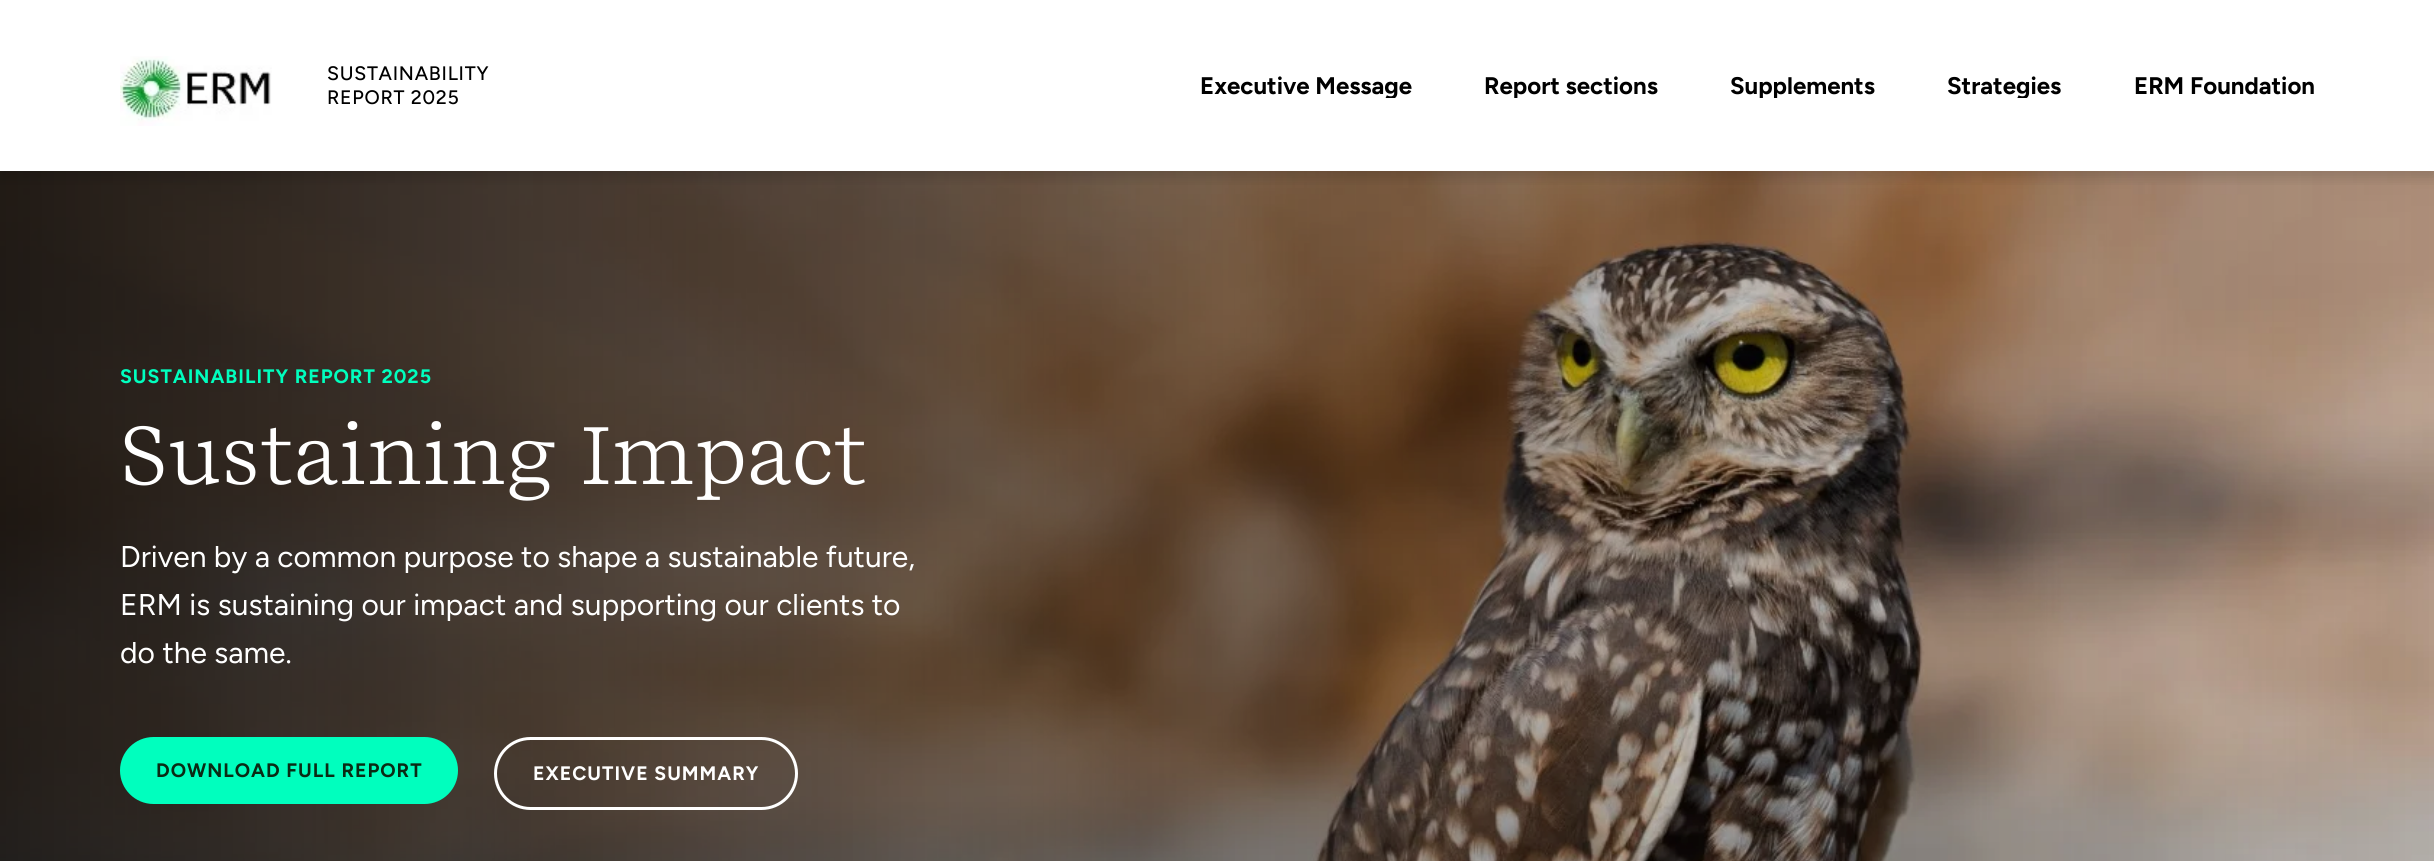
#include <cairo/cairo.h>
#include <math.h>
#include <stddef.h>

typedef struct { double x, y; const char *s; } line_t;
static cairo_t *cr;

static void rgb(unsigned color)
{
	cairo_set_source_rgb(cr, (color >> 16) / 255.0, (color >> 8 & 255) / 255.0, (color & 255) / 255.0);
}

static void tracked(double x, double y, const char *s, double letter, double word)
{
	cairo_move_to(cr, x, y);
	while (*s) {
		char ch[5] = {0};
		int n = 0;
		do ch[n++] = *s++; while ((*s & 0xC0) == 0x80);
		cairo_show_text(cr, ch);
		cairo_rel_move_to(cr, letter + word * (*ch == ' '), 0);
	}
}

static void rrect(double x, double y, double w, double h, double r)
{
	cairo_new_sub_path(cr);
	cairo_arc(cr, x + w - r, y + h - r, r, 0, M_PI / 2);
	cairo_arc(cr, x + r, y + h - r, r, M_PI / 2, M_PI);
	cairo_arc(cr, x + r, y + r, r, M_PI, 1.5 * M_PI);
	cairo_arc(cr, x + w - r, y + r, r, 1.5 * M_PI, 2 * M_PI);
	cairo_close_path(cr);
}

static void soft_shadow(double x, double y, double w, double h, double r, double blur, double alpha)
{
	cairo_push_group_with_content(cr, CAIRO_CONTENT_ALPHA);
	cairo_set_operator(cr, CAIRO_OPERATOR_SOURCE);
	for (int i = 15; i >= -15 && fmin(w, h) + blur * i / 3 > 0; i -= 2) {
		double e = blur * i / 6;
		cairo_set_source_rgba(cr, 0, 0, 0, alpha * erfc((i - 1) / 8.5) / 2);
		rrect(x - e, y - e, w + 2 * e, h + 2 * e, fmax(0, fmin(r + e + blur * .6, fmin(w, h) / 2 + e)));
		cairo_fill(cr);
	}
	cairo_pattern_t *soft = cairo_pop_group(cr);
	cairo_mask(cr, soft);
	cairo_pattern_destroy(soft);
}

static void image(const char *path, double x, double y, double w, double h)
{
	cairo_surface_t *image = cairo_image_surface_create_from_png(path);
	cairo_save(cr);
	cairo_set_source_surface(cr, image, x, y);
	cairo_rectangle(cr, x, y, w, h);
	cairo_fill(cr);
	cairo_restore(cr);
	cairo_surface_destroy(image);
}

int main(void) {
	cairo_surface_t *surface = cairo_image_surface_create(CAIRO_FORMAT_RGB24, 2434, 861);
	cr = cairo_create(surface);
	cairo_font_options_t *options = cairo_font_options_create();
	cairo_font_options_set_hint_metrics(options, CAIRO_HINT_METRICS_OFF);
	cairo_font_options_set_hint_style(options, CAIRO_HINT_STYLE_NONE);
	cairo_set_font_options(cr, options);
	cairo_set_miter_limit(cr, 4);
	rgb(0xffffff);
	cairo_paint(cr);
	image("img/2.png", 0, 171, 2434, 690);
	cairo_save(cr);
	cairo_rectangle(cr, 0, 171, 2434, 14);
	cairo_clip(cr);
	rgb(0x000000);
	soft_shadow(0, 6, 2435, 171, 0, 7.5, 0.15);
	cairo_restore(cr);
	image("img/1.png", 120, 56, 152, 70);
	rgb(0x00ffbe);
	rrect(120, 737, 338, 67, 33.5);
	cairo_fill(cr);
	rrect(495.5, 738.5, 301, 70, 35);
	rgb(0xffffff);
	cairo_set_line_width(cr, 3);
	cairo_stroke(cr);
	cairo_select_font_face(cr, "Figtree Medium", CAIRO_FONT_SLANT_NORMAL, CAIRO_FONT_WEIGHT_NORMAL);
	cairo_set_font_size(cr, 19.5);
	rgb(0x000000);
	tracked(327, 80, "SUSTAINABILITY", 0.75, 0);
	tracked(327, 104, "REPORT 2025", 0.75, 0);
	cairo_save(cr);
	cairo_rectangle(cr, 1200, 75, 1115, 23);
	cairo_clip(cr);
	cairo_select_font_face(cr, "Figtree", CAIRO_FONT_SLANT_NORMAL, CAIRO_FONT_WEIGHT_BOLD);
	cairo_set_font_size(cr, 24);
	{
		static const line_t items[] = {
			{1200, 94, "Executive Message"},
			{1484, 94, "Report sections"},
			{1730, 94, "Supplements"},
			{1947, 94, "Strategies"},
		};
		for (size_t i = 0; i < sizeof items / sizeof *items; i++) {
			cairo_move_to(cr, items[i].x, items[i].y);
			cairo_show_text(cr, items[i].s);
		}
	}
	cairo_restore(cr);
	cairo_select_font_face(cr, "Figtree", CAIRO_FONT_SLANT_NORMAL, CAIRO_FONT_WEIGHT_BOLD);
	cairo_set_font_size(cr, 24);
	cairo_move_to(cr, 2134, 94);
	cairo_show_text(cr, "ERM Foundation");
	cairo_set_font_size(cr, 19.5);
	rgb(0x00ffbe);
	tracked(120, 383, "SUSTAINABILITY REPORT 2025", 1, 0);
	cairo_select_font_face(cr, "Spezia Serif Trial", CAIRO_FONT_SLANT_NORMAL, CAIRO_FONT_WEIGHT_NORMAL);
	cairo_set_font_size(cr, 81);
	rgb(0xffffff);
	tracked(120, 484, "Sustaining Impact", -1.6, 0);
	cairo_select_font_face(cr, "Figtree", CAIRO_FONT_SLANT_NORMAL, CAIRO_FONT_WEIGHT_NORMAL);
	cairo_set_font_size(cr, 30);
	{
		static const line_t items[] = {
			{120, 567, "Driven by a common purpose to shape a sustainable future,"},
			{120, 615, "ERM is sustaining our impact and supporting our clients to"},
			{120, 663, "do the same."},
		};
		for (size_t i = 0; i < sizeof items / sizeof *items; i++) {
			cairo_move_to(cr, items[i].x, items[i].y);
			cairo_show_text(cr, items[i].s);
		}
	}
	cairo_select_font_face(cr, "Figtree", CAIRO_FONT_SLANT_NORMAL, CAIRO_FONT_WEIGHT_BOLD);
	cairo_set_font_size(cr, 19.5);
	rgb(0x0a2b14);
	tracked(156, 777, "DOWNLOAD FULL REPORT", 1, 0);
	rgb(0xffffff);
	tracked(533, 780, "EXECUTIVE SUMMARY", 1, 0);
	cairo_surface_write_to_png(surface, "page.png");
	cairo_font_options_destroy(options);
	cairo_destroy(cr);
	cairo_surface_destroy(surface);
	return 0;
}
